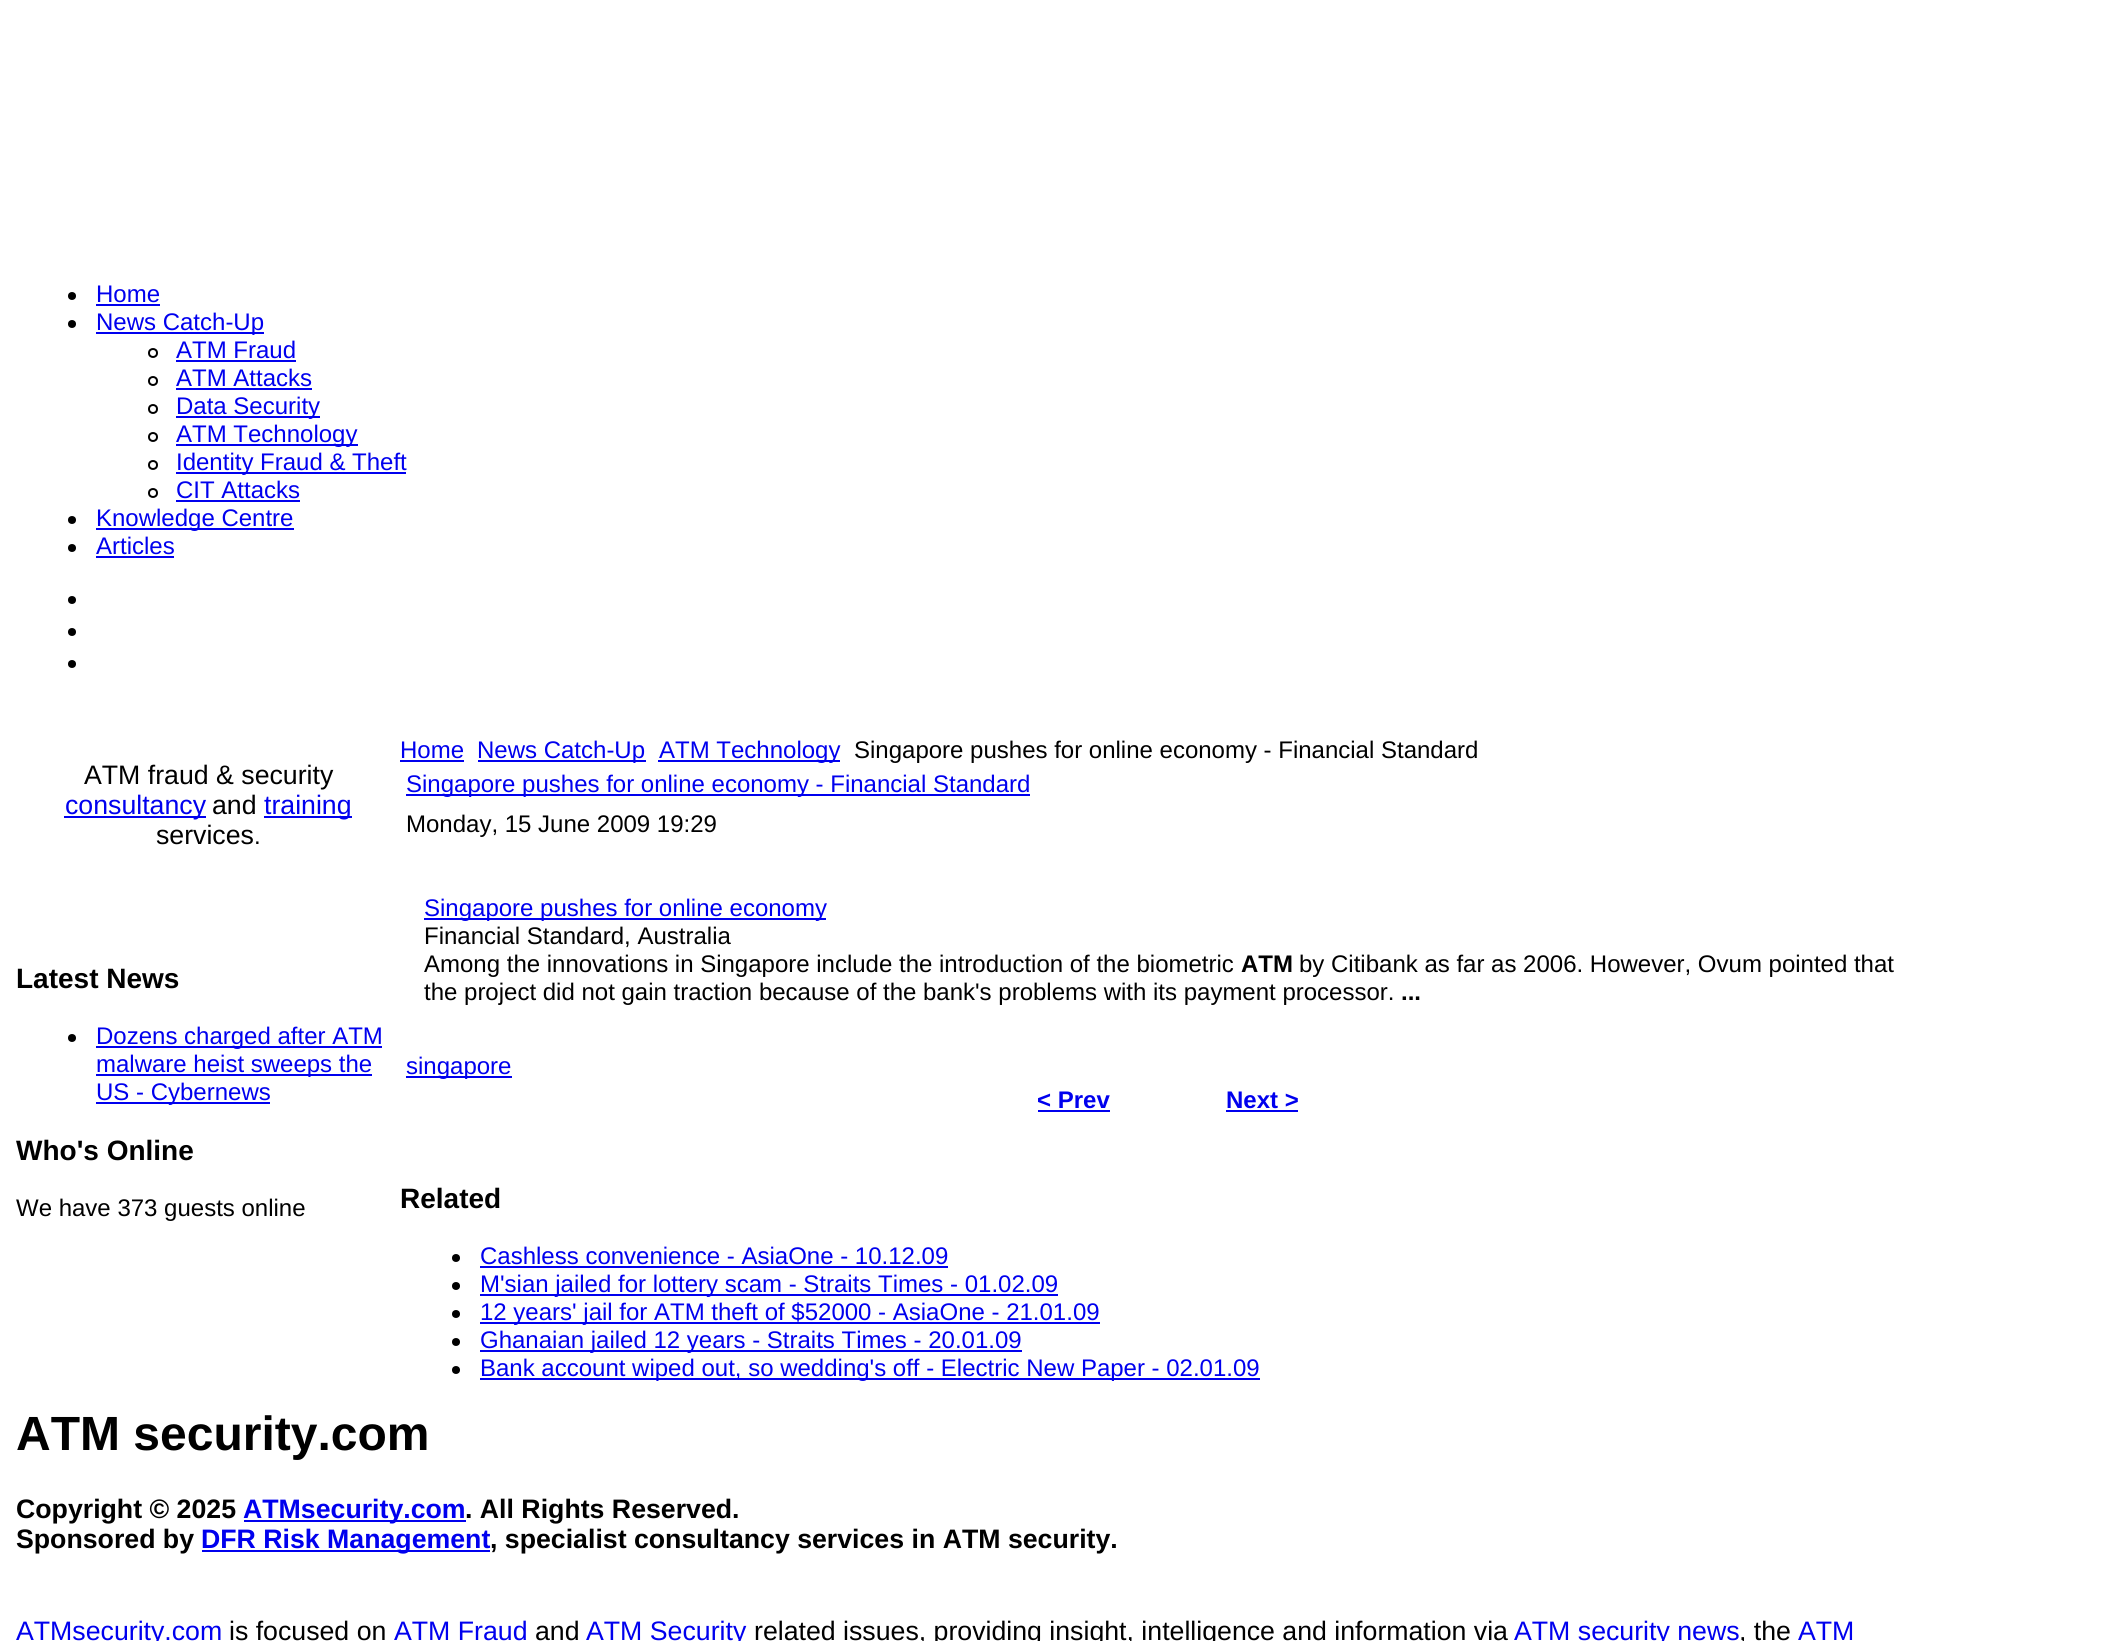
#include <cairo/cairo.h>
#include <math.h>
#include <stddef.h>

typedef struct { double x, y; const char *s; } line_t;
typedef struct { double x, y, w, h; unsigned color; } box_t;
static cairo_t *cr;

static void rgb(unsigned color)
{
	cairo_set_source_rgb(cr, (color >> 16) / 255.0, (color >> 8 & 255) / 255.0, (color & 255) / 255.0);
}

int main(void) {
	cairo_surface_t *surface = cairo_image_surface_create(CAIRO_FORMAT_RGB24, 2118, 1641);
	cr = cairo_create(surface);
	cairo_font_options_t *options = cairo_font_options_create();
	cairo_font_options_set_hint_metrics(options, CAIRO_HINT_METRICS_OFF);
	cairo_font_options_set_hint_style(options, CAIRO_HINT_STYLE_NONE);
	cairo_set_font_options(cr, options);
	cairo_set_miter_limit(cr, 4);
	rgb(0xffffff);
	cairo_paint(cr);
	rgb(0x000000);
	cairo_arc(cr, 72, 296, 4, 0, 2 * M_PI);
	cairo_fill(cr);
	rgb(0x0000ee);
	cairo_rectangle(cr, 96, 304, 64, 2);
	cairo_fill(cr);
	rgb(0x000000);
	cairo_arc(cr, 72, 324, 4, 0, 2 * M_PI);
	cairo_fill(cr);
	rgb(0x0000ee);
	cairo_rectangle(cr, 96, 332, 168, 2);
	cairo_fill(cr);
	cairo_arc(cr, 153, 353, 4, 0, 2 * M_PI);
	rgb(0x000000);
	cairo_stroke(cr);
	rgb(0x0000ee);
	cairo_rectangle(cr, 176, 360, 120, 2);
	cairo_fill(cr);
	cairo_arc(cr, 153, 381, 4, 0, 2 * M_PI);
	rgb(0x000000);
	cairo_stroke(cr);
	rgb(0x0000ee);
	cairo_rectangle(cr, 176, 388, 136, 2);
	cairo_fill(cr);
	cairo_arc(cr, 153, 409, 4, 0, 2 * M_PI);
	rgb(0x000000);
	cairo_stroke(cr);
	rgb(0x0000ee);
	cairo_rectangle(cr, 176, 416, 144, 2);
	cairo_fill(cr);
	cairo_arc(cr, 153, 437, 4, 0, 2 * M_PI);
	rgb(0x000000);
	cairo_stroke(cr);
	rgb(0x0000ee);
	cairo_rectangle(cr, 176, 444, 182, 2);
	cairo_fill(cr);
	cairo_arc(cr, 153, 465, 4, 0, 2 * M_PI);
	rgb(0x000000);
	cairo_stroke(cr);
	rgb(0x0000ee);
	cairo_rectangle(cr, 176, 472, 230, 2);
	cairo_fill(cr);
	cairo_arc(cr, 153, 493, 4, 0, 2 * M_PI);
	rgb(0x000000);
	cairo_stroke(cr);
	rgb(0x0000ee);
	cairo_rectangle(cr, 176, 500, 124, 2);
	cairo_fill(cr);
	rgb(0x000000);
	cairo_arc(cr, 72, 520, 4, 0, 2 * M_PI);
	cairo_fill(cr);
	rgb(0x0000ee);
	cairo_rectangle(cr, 96, 528, 198, 2);
	cairo_fill(cr);
	rgb(0x000000);
	cairo_arc(cr, 72, 548, 4, 0, 2 * M_PI);
	cairo_fill(cr);
	rgb(0x0000ee);
	cairo_rectangle(cr, 96, 556, 78, 2);
	cairo_fill(cr);
	rgb(0x000000);
	cairo_arc(cr, 72, 600, 4, 0, 2 * M_PI);
	cairo_fill(cr);
	cairo_arc(cr, 72, 632, 4, 0, 2 * M_PI);
	cairo_fill(cr);
	cairo_arc(cr, 72, 664, 4, 0, 2 * M_PI);
	cairo_fill(cr);
	rgb(0x0000ee);
	cairo_rectangle(cr, 64, 816, 142, 2);
	cairo_fill(cr);
	cairo_rectangle(cr, 264, 816, 88, 2);
	cairo_fill(cr);
	rgb(0x000000);
	cairo_arc(cr, 72, 1038, 4, 0, 2 * M_PI);
	cairo_fill(cr);
	{
		static const box_t items[] = {
			{96, 1046, 286, 2, 0x0000ee},
			{96, 1074, 276, 2, 0x0000ee},
			{96, 1102, 174, 2, 0x0000ee},
			{400, 760, 64, 2, 0x0000ee},
			{478, 760, 168, 2, 0x0000ee},
			{658, 760, 182, 2, 0x0000ee},
			{406, 794, 624, 2, 0x0000ee},
			{424, 918, 402, 2, 0x0000ee},
			{406, 1076, 106, 2, 0x0000ee},
			{1038, 1110, 72, 2, 0x0000ee},
			{1226, 1110, 72, 2, 0x0000ee},
		};
		for (size_t i = 0; i < sizeof items / sizeof *items; i++) {
			rgb(items[i].color);
			cairo_rectangle(cr, items[i].x, items[i].y, items[i].w, items[i].h);
			cairo_fill(cr);
		}
	}
	rgb(0x000000);
	cairo_arc(cr, 456, 1258, 4, 0, 2 * M_PI);
	cairo_fill(cr);
	rgb(0x0000ee);
	cairo_rectangle(cr, 480, 1266, 468, 2);
	cairo_fill(cr);
	rgb(0x000000);
	cairo_arc(cr, 456, 1286, 4, 0, 2 * M_PI);
	cairo_fill(cr);
	rgb(0x0000ee);
	cairo_rectangle(cr, 480, 1294, 578, 2);
	cairo_fill(cr);
	rgb(0x000000);
	cairo_arc(cr, 456, 1314, 4, 0, 2 * M_PI);
	cairo_fill(cr);
	rgb(0x0000ee);
	cairo_rectangle(cr, 480, 1322, 620, 2);
	cairo_fill(cr);
	rgb(0x000000);
	cairo_arc(cr, 456, 1342, 4, 0, 2 * M_PI);
	cairo_fill(cr);
	rgb(0x0000ee);
	cairo_rectangle(cr, 480, 1350, 542, 2);
	cairo_fill(cr);
	rgb(0x000000);
	cairo_arc(cr, 456, 1370, 4, 0, 2 * M_PI);
	cairo_fill(cr);
	{
		static const box_t items[] = {
			{480, 1378, 780, 2, 0x0000ee},
			{244, 1520, 222, 2, 0x0000ee},
			{202, 1550, 288, 2, 0x0000ee},
		};
		for (size_t i = 0; i < sizeof items / sizeof *items; i++) {
			rgb(items[i].color);
			cairo_rectangle(cr, items[i].x, items[i].y, items[i].w, items[i].h);
			cairo_fill(cr);
		}
	}
	cairo_select_font_face(cr, "Liberation Sans", CAIRO_FONT_SLANT_NORMAL, CAIRO_FONT_WEIGHT_NORMAL);
	cairo_set_font_size(cr, 24);
	{
		static const line_t items[] = {
			{96, 302, "Home"},
			{96, 330, "News Catch-Up"},
			{176, 358, "ATM Fraud"},
			{176, 386, "ATM Attacks"},
			{176, 414, "Data Security"},
			{176, 442, "ATM Technology"},
			{176, 470, "Identity Fraud & Theft"},
			{176, 498, "CIT Attacks"},
			{96, 526, "Knowledge Centre"},
			{96, 554, "Articles"},
		};
		for (size_t i = 0; i < sizeof items / sizeof *items; i++) {
			cairo_move_to(cr, items[i].x, items[i].y);
			cairo_show_text(cr, items[i].s);
		}
	}
	cairo_set_font_size(cr, 26.7);
	rgb(0x000000);
	cairo_move_to(cr, 84, 784);
	cairo_show_text(cr, "ATM fraud & security");
	rgb(0x0000ee);
	cairo_move_to(cr, 65, 814);
	cairo_show_text(cr, "consultancy");
	rgb(0x000000);
	cairo_move_to(cr, 212, 814);
	cairo_show_text(cr, "and");
	rgb(0x0000ee);
	cairo_move_to(cr, 264, 814);
	cairo_show_text(cr, "training");
	rgb(0x000000);
	cairo_move_to(cr, 156, 844);
	cairo_show_text(cr, "services");
	cairo_set_font_size(cr, 24);
	cairo_move_to(cr, 254, 844);
	cairo_show_text(cr, ".");
	cairo_select_font_face(cr, "Liberation Sans", CAIRO_FONT_SLANT_NORMAL, CAIRO_FONT_WEIGHT_BOLD);
	cairo_set_font_size(cr, 28);
	cairo_move_to(cr, 16, 988);
	cairo_show_text(cr, "Latest News");
	cairo_select_font_face(cr, "Liberation Sans", CAIRO_FONT_SLANT_NORMAL, CAIRO_FONT_WEIGHT_NORMAL);
	cairo_set_font_size(cr, 24);
	rgb(0x0000ee);
	{
		static const line_t items[] = {
			{96, 1044, "Dozens charged after ATM"},
			{96, 1072, "malware heist sweeps the"},
			{96, 1100, "US - Cybernews"},
		};
		for (size_t i = 0; i < sizeof items / sizeof *items; i++) {
			cairo_move_to(cr, items[i].x, items[i].y);
			cairo_show_text(cr, items[i].s);
		}
	}
	cairo_select_font_face(cr, "Liberation Sans", CAIRO_FONT_SLANT_NORMAL, CAIRO_FONT_WEIGHT_BOLD);
	cairo_set_font_size(cr, 28);
	rgb(0x000000);
	cairo_move_to(cr, 16, 1160);
	cairo_show_text(cr, "Who's Online");
	cairo_select_font_face(cr, "Liberation Sans", CAIRO_FONT_SLANT_NORMAL, CAIRO_FONT_WEIGHT_NORMAL);
	cairo_set_font_size(cr, 24);
	cairo_move_to(cr, 16, 1216);
	cairo_show_text(cr, "We have 373 guests online");
	rgb(0x0000ee);
	{
		static const line_t items[] = {
			{400, 758, "Home"},
			{477, 758, "News Catch-Up"},
			{659, 758, "ATM Technology"},
		};
		for (size_t i = 0; i < sizeof items / sizeof *items; i++) {
			cairo_move_to(cr, items[i].x, items[i].y);
			cairo_show_text(cr, items[i].s);
		}
	}
	rgb(0x000000);
	cairo_move_to(cr, 854, 758);
	cairo_show_text(cr, "Singapore pushes for online economy - Financial Standard");
	rgb(0x0000ee);
	cairo_move_to(cr, 406, 792);
	cairo_show_text(cr, "Singapore pushes for online economy - Financial Standard");
	rgb(0x000000);
	cairo_move_to(cr, 406, 832);
	cairo_show_text(cr, "Monday, 15 June 2009 19:29");
	rgb(0x0000ee);
	cairo_move_to(cr, 424, 916);
	cairo_show_text(cr, "Singapore pushes for online economy");
	rgb(0x000000);
	cairo_move_to(cr, 424, 944);
	cairo_show_text(cr, "Financial Standard, Australia");
	cairo_move_to(cr, 424, 972);
	cairo_show_text(cr, "Among the innovations in Singapore include the introduction of the biometric");
	cairo_select_font_face(cr, "Liberation Sans", CAIRO_FONT_SLANT_NORMAL, CAIRO_FONT_WEIGHT_BOLD);
	cairo_move_to(cr, 1241, 972);
	cairo_show_text(cr, "ATM");
	cairo_select_font_face(cr, "Liberation Sans", CAIRO_FONT_SLANT_NORMAL, CAIRO_FONT_WEIGHT_NORMAL);
	cairo_move_to(cr, 1299, 972);
	cairo_show_text(cr, "by Citibank as far as 2006. However, Ovum pointed that");
	cairo_move_to(cr, 424, 1000);
	cairo_show_text(cr, "the project did not gain traction because of the bank's problems with its payment processor.");
	cairo_select_font_face(cr, "Liberation Sans", CAIRO_FONT_SLANT_NORMAL, CAIRO_FONT_WEIGHT_BOLD);
	cairo_move_to(cr, 1401, 1000);
	cairo_show_text(cr, "...");
	cairo_select_font_face(cr, "Liberation Sans", CAIRO_FONT_SLANT_NORMAL, CAIRO_FONT_WEIGHT_NORMAL);
	rgb(0x0000ee);
	cairo_move_to(cr, 406, 1074);
	cairo_show_text(cr, "singapore");
	cairo_select_font_face(cr, "Liberation Sans", CAIRO_FONT_SLANT_NORMAL, CAIRO_FONT_WEIGHT_BOLD);
	cairo_move_to(cr, 1037, 1108);
	cairo_show_text(cr, "< Prev");
	cairo_move_to(cr, 1226, 1108);
	cairo_show_text(cr, "Next >");
	cairo_set_font_size(cr, 28);
	rgb(0x000000);
	cairo_move_to(cr, 400, 1208);
	cairo_show_text(cr, "Related");
	cairo_select_font_face(cr, "Liberation Sans", CAIRO_FONT_SLANT_NORMAL, CAIRO_FONT_WEIGHT_NORMAL);
	cairo_set_font_size(cr, 24);
	rgb(0x0000ee);
	{
		static const line_t items[] = {
			{480, 1264, "Cashless convenience - AsiaOne - 10.12.09"},
			{480, 1292, "M'sian jailed for lottery scam - Straits Times - 01.02.09"},
			{480, 1320, "12 years' jail for ATM theft of $52000 - AsiaOne - 21.01.09"},
			{480, 1348, "Ghanaian jailed 12 years - Straits Times - 20.01.09"},
			{480, 1376, "Bank account wiped out, so wedding's off - Electric New Paper - 02.01.09"},
		};
		for (size_t i = 0; i < sizeof items / sizeof *items; i++) {
			cairo_move_to(cr, items[i].x, items[i].y);
			cairo_show_text(cr, items[i].s);
		}
	}
	cairo_select_font_face(cr, "Liberation Sans", CAIRO_FONT_SLANT_NORMAL, CAIRO_FONT_WEIGHT_BOLD);
	cairo_set_font_size(cr, 48);
	rgb(0x000000);
	cairo_move_to(cr, 16, 1450);
	cairo_show_text(cr, "ATM security.com");
	cairo_set_font_size(cr, 26.7);
	cairo_move_to(cr, 16, 1518);
	cairo_show_text(cr, "Copyright © 2025");
	rgb(0x0000ee);
	cairo_move_to(cr, 243, 1518);
	cairo_show_text(cr, "ATMsecurity.com");
	rgb(0x000000);
	cairo_move_to(cr, 465, 1518);
	cairo_show_text(cr, ". All Rights Reserved.");
	cairo_move_to(cr, 16, 1548);
	cairo_show_text(cr, "Sponsored by");
	rgb(0x0000ee);
	cairo_move_to(cr, 201, 1548);
	cairo_show_text(cr, "DFR Risk Management");
	rgb(0x000000);
	cairo_move_to(cr, 490, 1548);
	cairo_show_text(cr, ", specialist consultancy services in ATM security.");
	cairo_select_font_face(cr, "Liberation Sans", CAIRO_FONT_SLANT_NORMAL, CAIRO_FONT_WEIGHT_NORMAL);
	rgb(0x0000ee);
	cairo_move_to(cr, 16, 1640);
	cairo_show_text(cr, "ATMsecurity.com");
	rgb(0x000000);
	cairo_move_to(cr, 229, 1640);
	cairo_show_text(cr, "is focused on");
	rgb(0x0000ee);
	cairo_move_to(cr, 394, 1640);
	cairo_show_text(cr, "ATM Fraud");
	rgb(0x000000);
	cairo_move_to(cr, 535, 1640);
	cairo_show_text(cr, "and");
	rgb(0x0000ee);
	cairo_move_to(cr, 586, 1640);
	cairo_show_text(cr, "ATM Security");
	rgb(0x000000);
	cairo_move_to(cr, 754, 1640);
	cairo_show_text(cr, "related issues, providing insight, intelligence and information via");
	rgb(0x0000ee);
	cairo_move_to(cr, 1514, 1640);
	cairo_show_text(cr, "ATM security news");
	rgb(0x000000);
	cairo_move_to(cr, 1739, 1640);
	cairo_show_text(cr, ", the");
	rgb(0x0000ee);
	cairo_move_to(cr, 1798, 1640);
	cairo_show_text(cr, "ATM");
	cairo_surface_write_to_png(surface, "page.png");
	cairo_font_options_destroy(options);
	cairo_destroy(cr);
	cairo_surface_destroy(surface);
	return 0;
}
